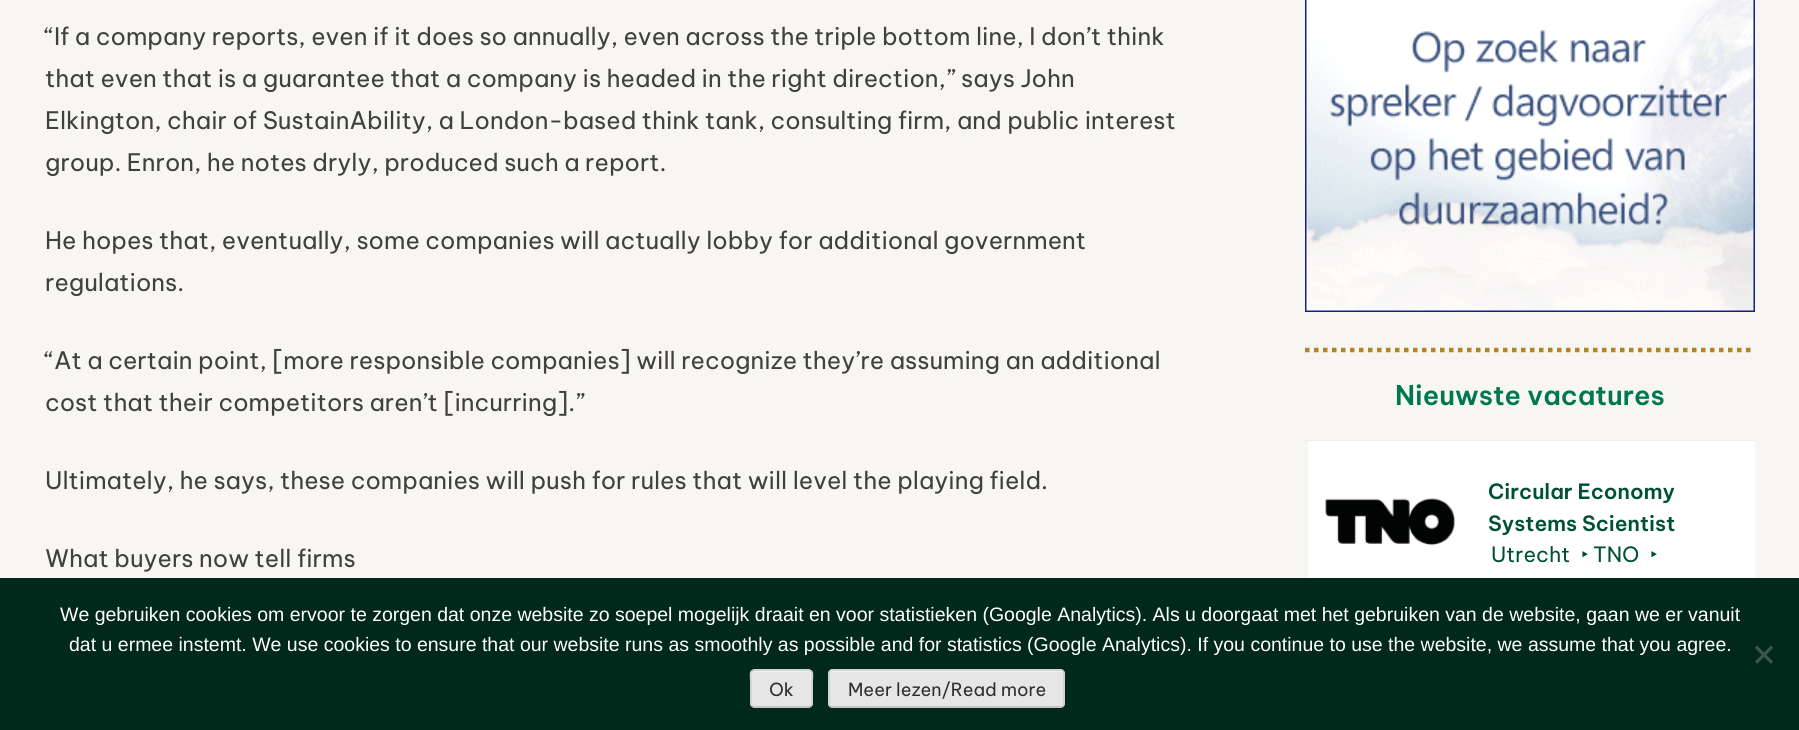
#include <cairo/cairo.h>
#include <math.h>
#include <stddef.h>

typedef struct { double x, y; const char *s; } line_t;
static cairo_t *cr;

static void rgb(unsigned color)
{
	cairo_set_source_rgb(cr, (color >> 16) / 255.0, (color >> 8 & 255) / 255.0, (color & 255) / 255.0);
}

static void rrect(double x, double y, double w, double h, double r)
{
	cairo_new_sub_path(cr);
	cairo_arc(cr, x + w - r, y + h - r, r, 0, M_PI / 2);
	cairo_arc(cr, x + r, y + h - r, r, M_PI / 2, M_PI);
	cairo_arc(cr, x + r, y + r, r, M_PI, 1.5 * M_PI);
	cairo_arc(cr, x + w - r, y + r, r, 1.5 * M_PI, 2 * M_PI);
	cairo_close_path(cr);
}

static void image(const char *path, double x, double y, double w, double h)
{
	cairo_surface_t *image = cairo_image_surface_create_from_png(path);
	cairo_save(cr);
	cairo_set_source_surface(cr, image, x, y);
	cairo_rectangle(cr, x, y, w, h);
	cairo_fill(cr);
	cairo_restore(cr);
	cairo_surface_destroy(image);
}

int main(void) {
	cairo_surface_t *surface = cairo_image_surface_create(CAIRO_FORMAT_RGB24, 1799, 730);
	cr = cairo_create(surface);
	cairo_font_options_t *options = cairo_font_options_create();
	cairo_font_options_set_hint_metrics(options, CAIRO_HINT_METRICS_OFF);
	cairo_font_options_set_hint_style(options, CAIRO_HINT_STYLE_NONE);
	cairo_set_font_options(cr, options);
	cairo_set_miter_limit(cr, 4);
	rgb(0xf7f6f2);
	cairo_paint(cr);
	image("img/1.png", 1305, 0, 450, 312);
	cairo_new_path(cr);
	cairo_move_to(cr, 1305, 350);
	cairo_line_to(cr, 1755, 350);
	rgb(0xb38327);
	cairo_set_line_width(cr, 4.5);
	cairo_set_dash(cr, (double[]){4.5, 4.5}, 2, 0);
	cairo_stroke(cr);
	rgb(0xeeeeee);
	cairo_rectangle(cr, 1305, 440, 450, 2);
	cairo_fill(cr);
	rgb(0xffffff);
	cairo_rectangle(cr, 1308, 441, 447, 137);
	cairo_fill(cr);
	image("img/2.png", 1325, 498, 130, 48);
	rgb(0x00281b);
	cairo_rectangle(cr, 0, 578, 1799, 152);
	cairo_fill(cr);
	rgb(0x40544e);
	cairo_new_path(cr);
	cairo_move_to(cr, 1771, 645.5);
	cairo_line_to(cr, 1773, 648);
	cairo_line_to(cr, 1757, 664);
	cairo_line_to(cr, 1755, 661.5);
	cairo_close_path(cr);
	cairo_fill(cr);
	cairo_new_path(cr);
	cairo_move_to(cr, 1755, 648);
	cairo_line_to(cr, 1757, 645.5);
	cairo_line_to(cr, 1773, 661.5);
	cairo_line_to(cr, 1771, 664);
	cairo_close_path(cr);
	cairo_fill(cr);
	rgb(0xe6e6e6);
	rrect(750, 669, 63, 39, 5);
	cairo_fill(cr);
	rgb(0xf3f3f3);
	cairo_new_path(cr);
	cairo_move_to(cr, 754, 672);
	cairo_line_to(cr, 808, 672);
	cairo_curve_to(cr, 810, 672, 812, 673, 812, 675);
	cairo_curve_to(cr, 812, 669, 804, 671, 800, 671);
	cairo_line_to(cr, 764, 671);
	cairo_curve_to(cr, 760, 671, 752, 669, 752, 675);
	cairo_curve_to(cr, 752, 673, 753, 672, 754, 672);
	cairo_close_path(cr);
	cairo_fill(cr);
	cairo_new_path(cr);
	cairo_move_to(cr, 811, 706);
	cairo_line_to(cr, 809, 707);
	cairo_line_to(cr, 754, 707);
	cairo_line_to(cr, 752, 706);
	rgb(0xbbbbbb);
	cairo_set_line_width(cr, 1.5);
	cairo_set_dash(cr, NULL, 0, 0);
	cairo_stroke(cr);
	cairo_new_path(cr);
	cairo_move_to(cr, 752, 706);
	cairo_curve_to(cr, 750, 704.5, 751, 700.5, 751, 698.5);
	cairo_line_to(cr, 751, 688.5);
	cairo_curve_to(cr, 751, 670, 746.5, 670, 763.5, 670);
	cairo_line_to(cr, 799.5, 670);
	cairo_curve_to(cr, 816.5, 670, 812, 670, 812, 688.5);
	cairo_line_to(cr, 812, 698.5);
	cairo_curve_to(cr, 812, 700.5, 813, 704.5, 811, 706);
	rgb(0xcccccc);
	cairo_stroke(cr);
	rgb(0xe6e6e6);
	rrect(828, 669, 237, 39, 5);
	cairo_fill(cr);
	rgb(0xf3f3f3);
	cairo_new_path(cr);
	cairo_move_to(cr, 832, 672);
	cairo_line_to(cr, 1060, 672);
	cairo_curve_to(cr, 1062, 672, 1064, 673, 1064, 675);
	cairo_curve_to(cr, 1064, 673, 1063, 671, 1061, 671);
	cairo_line_to(cr, 833, 671);
	cairo_curve_to(cr, 831, 671, 830, 673, 830, 675);
	cairo_curve_to(cr, 830, 673, 831, 672, 832, 672);
	cairo_close_path(cr);
	cairo_fill(cr);
	cairo_new_path(cr);
	cairo_move_to(cr, 1063, 706);
	cairo_curve_to(cr, 1062.5, 707, 1061.5, 707, 1060.5, 707);
	cairo_line_to(cr, 832.5, 707);
	cairo_curve_to(cr, 831.5, 707, 830.5, 707, 830, 706);
	rgb(0xbbbbbb);
	cairo_stroke(cr);
	cairo_new_path(cr);
	cairo_move_to(cr, 830, 706);
	cairo_curve_to(cr, 829, 705.5, 829, 704.5, 829, 703.5);
	cairo_line_to(cr, 829, 673.5);
	cairo_curve_to(cr, 829, 672.5, 829, 671.5, 830, 671);
	cairo_curve_to(cr, 830.5, 670, 831.5, 670, 832.5, 670);
	cairo_line_to(cr, 1060.5, 670);
	cairo_curve_to(cr, 1061.5, 670, 1062.5, 670, 1063, 671);
	cairo_curve_to(cr, 1064, 671.5, 1064, 672.5, 1064, 673.5);
	cairo_line_to(cr, 1064, 703.5);
	cairo_curve_to(cr, 1064, 704.5, 1064, 705.5, 1063, 706);
	rgb(0xcccccc);
	cairo_stroke(cr);
	cairo_select_font_face(cr, "Be Vietnam Pro", CAIRO_FONT_SLANT_NORMAL, CAIRO_FONT_WEIGHT_NORMAL);
	cairo_set_font_size(cr, 24);
	rgb(0x404040);
	{
		static const line_t items[] = {
			{45, 45, "“If a company reports, even if it does so annually, even across the triple bottom line, I don’t think"},
			{45, 87, "that even that is a guarantee that a company is headed in the right direction,” says John"},
			{45, 129, "Elkington, chair of SustainAbility, a London-based think tank, consulting firm, and public interest"},
			{45, 171, "group. Enron, he notes dryly, produced such a report."},
			{45, 249, "He hopes that, eventually, some companies will actually lobby for additional government"},
			{45, 291, "regulations."},
			{45, 369, "“At a certain point, [more responsible companies] will recognize they’re assuming an additional"},
			{45, 411, "cost that their competitors aren’t [incurring].”"},
			{45, 489, "Ultimately, he says, these companies will push for rules that will level the playing field."},
			{45, 567, "What buyers now tell firms"},
		};
		for (size_t i = 0; i < sizeof items / sizeof *items; i++) {
			cairo_move_to(cr, items[i].x, items[i].y);
			cairo_show_text(cr, items[i].s);
		}
	}
	cairo_select_font_face(cr, "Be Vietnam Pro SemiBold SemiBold", CAIRO_FONT_SLANT_NORMAL, CAIRO_FONT_WEIGHT_NORMAL);
	cairo_set_font_size(cr, 27);
	rgb(0x007750);
	cairo_move_to(cr, 1395, 405);
	cairo_show_text(cr, "Nieuwste vacatures");
	cairo_set_font_size(cr, 21);
	rgb(0x005035);
	cairo_move_to(cr, 1488, 499);
	cairo_show_text(cr, "Circular Economy");
	cairo_move_to(cr, 1488, 531);
	cairo_show_text(cr, "Systems Scientist");
	cairo_select_font_face(cr, "Be Vietnam Pro", CAIRO_FONT_SLANT_NORMAL, CAIRO_FONT_WEIGHT_NORMAL);
	cairo_move_to(cr, 1491, 562);
	cairo_show_text(cr, "Utrecht");
	cairo_select_font_face(cr, "Noto Sans", CAIRO_FONT_SLANT_NORMAL, CAIRO_FONT_WEIGHT_NORMAL);
	cairo_move_to(cr, 1581, 562);
	cairo_show_text(cr, "‣");
	cairo_select_font_face(cr, "Be Vietnam Pro", CAIRO_FONT_SLANT_NORMAL, CAIRO_FONT_WEIGHT_NORMAL);
	cairo_move_to(cr, 1593, 562);
	cairo_show_text(cr, "TNO");
	cairo_select_font_face(cr, "Noto Sans", CAIRO_FONT_SLANT_NORMAL, CAIRO_FONT_WEIGHT_NORMAL);
	cairo_move_to(cr, 1650, 562);
	cairo_show_text(cr, "‣");
	cairo_select_font_face(cr, "Liberation Sans", CAIRO_FONT_SLANT_NORMAL, CAIRO_FONT_WEIGHT_NORMAL);
	cairo_set_font_size(cr, 19.5);
	rgb(0xffffff);
	cairo_move_to(cr, 60, 621);
	cairo_show_text(cr, "We gebruiken cookies om ervoor te zorgen dat onze website zo soepel mogelijk draait en voor statistieken (Google Analytics). Als u doorgaat met het gebruiken van de website, gaan we er vanuit");
	cairo_move_to(cr, 69, 651);
	cairo_show_text(cr, "dat u ermee instemt. We use cookies to ensure that our website runs as smoothly as possible and for statistics (Google Analytics). If you continue to use the website, we assume that you agree.");
	cairo_select_font_face(cr, "Be Vietnam Pro", CAIRO_FONT_SLANT_NORMAL, CAIRO_FONT_WEIGHT_NORMAL);
	cairo_set_font_size(cr, 18);
	rgb(0x2e2e2e);
	cairo_move_to(cr, 769, 696);
	cairo_show_text(cr, "Ok");
	cairo_move_to(cr, 848, 696);
	cairo_show_text(cr, "Meer lezen/Read more");
	cairo_surface_write_to_png(surface, "page.png");
	cairo_font_options_destroy(options);
	cairo_destroy(cr);
	cairo_surface_destroy(surface);
	return 0;
}
